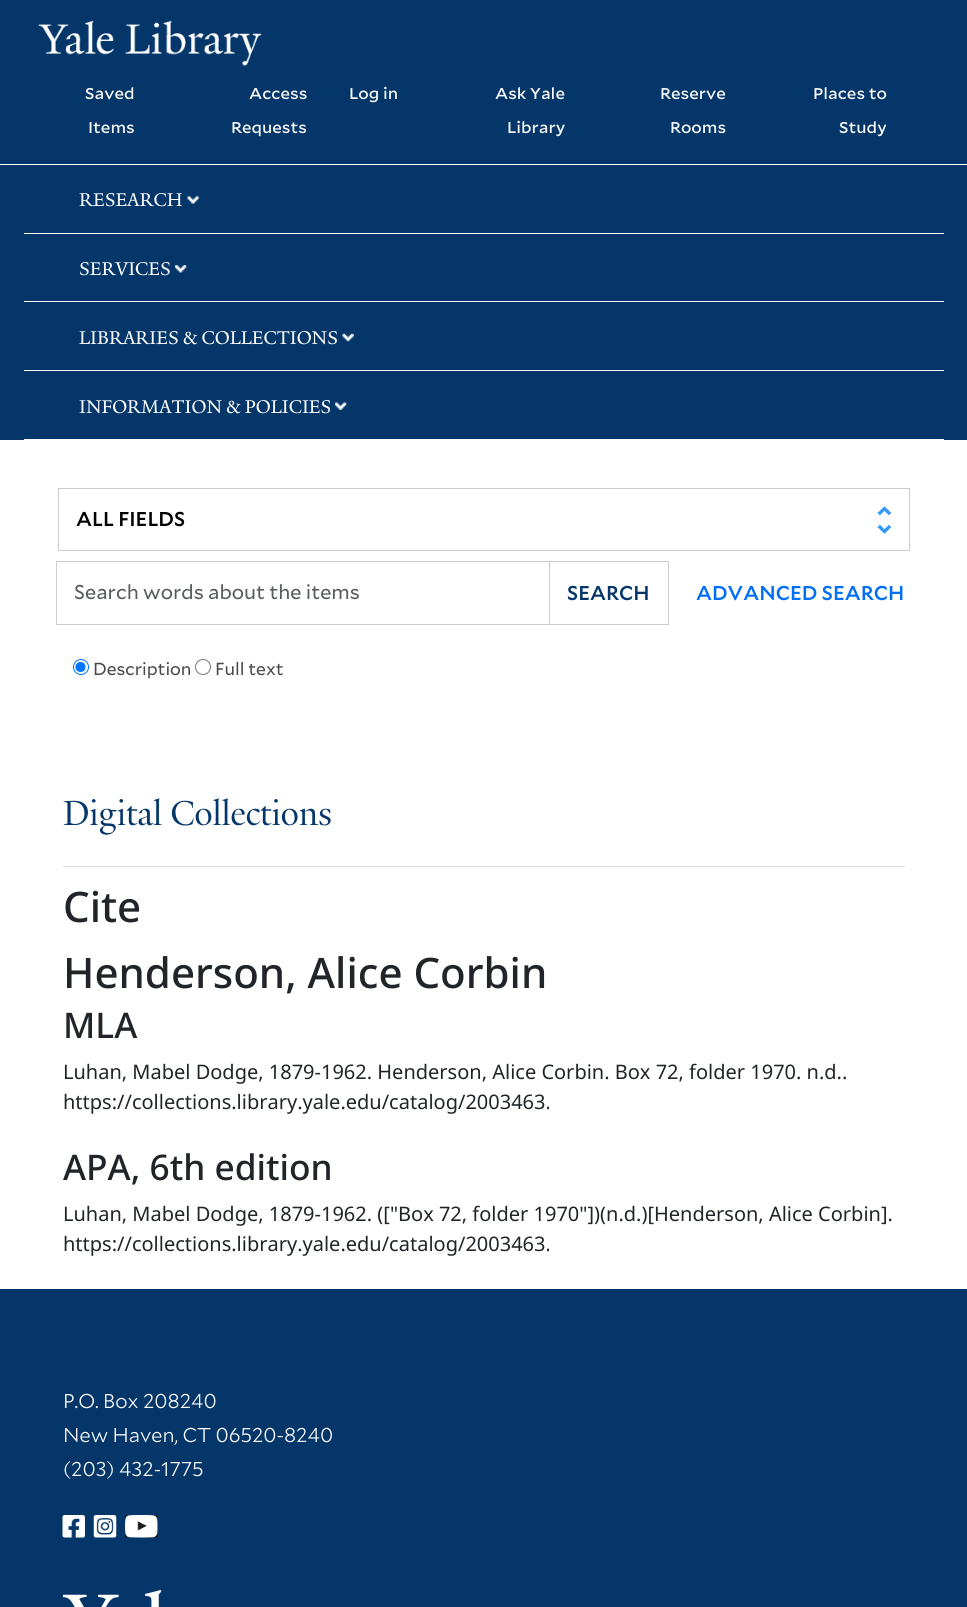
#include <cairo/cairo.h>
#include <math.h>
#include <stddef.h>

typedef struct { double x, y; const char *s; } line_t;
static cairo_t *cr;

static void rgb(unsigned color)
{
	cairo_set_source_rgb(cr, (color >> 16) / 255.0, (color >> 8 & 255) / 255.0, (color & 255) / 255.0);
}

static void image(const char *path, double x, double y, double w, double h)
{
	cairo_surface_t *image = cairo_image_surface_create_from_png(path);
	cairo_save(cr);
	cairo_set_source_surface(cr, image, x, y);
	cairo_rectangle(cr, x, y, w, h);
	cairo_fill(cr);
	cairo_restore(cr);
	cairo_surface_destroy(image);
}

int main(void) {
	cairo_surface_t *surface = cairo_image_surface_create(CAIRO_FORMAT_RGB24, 967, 1607);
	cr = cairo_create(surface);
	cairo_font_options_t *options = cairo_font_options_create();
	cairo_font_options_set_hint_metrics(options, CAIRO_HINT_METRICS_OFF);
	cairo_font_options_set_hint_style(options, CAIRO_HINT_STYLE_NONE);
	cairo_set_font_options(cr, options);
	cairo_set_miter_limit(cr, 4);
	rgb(0xffffff);
	cairo_paint(cr);
	rgb(0x043669);
	cairo_rectangle(cr, 0, 0, 967, 164);
	cairo_fill(cr);
	image("img/1.png", 38, 20, 224, 46);
	cairo_rectangle(cr, 0, 165, 967, 275);
	cairo_fill(cr);
	rgb(0xffffff);
	cairo_rectangle(cr, 24, 233, 920, 1);
	cairo_fill(cr);
	image("img/2.png", 187, 196, 12, 8);
	cairo_rectangle(cr, 24, 301, 920, 1);
	cairo_fill(cr);
	image("img/3.png", 175, 265, 12, 8);
	cairo_rectangle(cr, 24, 370, 920, 1);
	cairo_fill(cr);
	image("img/4.png", 342, 333, 12, 9);
	cairo_rectangle(cr, 24, 439, 920, 1);
	cairo_fill(cr);
	image("img/5.png", 335, 402, 12, 8);
	image("img/6.png", 877, 506, 15, 28);
	cairo_rectangle(cr, 58.5, 488.5, 851, 62);
	rgb(0xcccccc);
	cairo_set_line_width(cr, 1);
	cairo_stroke(cr);
	cairo_rectangle(cr, 56.5, 561.5, 493, 63);
	cairo_stroke(cr);
	cairo_rectangle(cr, 549.5, 561.5, 119, 63);
	cairo_stroke(cr);
	cairo_arc(cr, 81, 667, 7.5, 0, 2 * M_PI);
	rgb(0x0075ff);
	cairo_stroke(cr);
	cairo_arc(cr, 80.5, 667, 5, 0, 2 * M_PI);
	cairo_fill(cr);
	cairo_arc(cr, 203, 667, 7.5, 0, 2 * M_PI);
	rgb(0x767676);
	cairo_stroke(cr);
	rgb(0xdddddd);
	cairo_rectangle(cr, 63, 866, 842, 1);
	cairo_fill(cr);
	rgb(0x043669);
	cairo_rectangle(cr, 0, 1289, 967, 318);
	cairo_fill(cr);
	image("img/7.png", 62, 1515, 23, 23);
	image("img/8.png", 93, 1515, 24, 23);
	image("img/9.png", 125, 1515, 33, 23);
	image("img/10.png", 63, 1590, 99, 17);
	cairo_select_font_face(cr, "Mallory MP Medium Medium", CAIRO_FONT_SLANT_NORMAL, CAIRO_FONT_WEIGHT_NORMAL);
	cairo_set_font_size(cr, 15);
	rgb(0xf9f9f9);
	{
		static const line_t items[] = {
			{85, 99, "Saved"},
			{88, 133, "Items"},
			{249, 99, "Access"},
			{231, 133, "Requests"},
			{349, 99, "Log in"},
			{495, 99, "Ask Yale"},
			{507, 133, "Library"},
			{660, 99, "Reserve"},
			{670, 133, "Rooms"},
			{813, 99, "Places to"},
			{839, 133, "Study"},
		};
		for (size_t i = 0; i < sizeof items / sizeof *items; i++) {
			cairo_move_to(cr, items[i].x, items[i].y);
			cairo_show_text(cr, items[i].s);
		}
	}
	cairo_select_font_face(cr, "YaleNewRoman", CAIRO_FONT_SLANT_NORMAL, CAIRO_FONT_WEIGHT_NORMAL);
	cairo_set_font_size(cr, 20);
	rgb(0xffffff);
	{
		static const line_t items[] = {
			{79, 206, "RESEARCH"},
			{79, 275, "SERVICES"},
			{79, 344, "LIBRARIES & COLLECTIONS"},
			{79, 413, "INFORMATION & POLICIES"},
		};
		for (size_t i = 0; i < sizeof items / sizeof *items; i++) {
			cairo_move_to(cr, items[i].x, items[i].y);
			cairo_show_text(cr, items[i].s);
		}
	}
	cairo_select_font_face(cr, "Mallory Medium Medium", CAIRO_FONT_SLANT_NORMAL, CAIRO_FONT_WEIGHT_NORMAL);
	rgb(0x000000);
	cairo_move_to(cr, 76, 526);
	cairo_show_text(cr, "ALL FIELDS");
	cairo_select_font_face(cr, "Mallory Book", CAIRO_FONT_SLANT_NORMAL, CAIRO_FONT_WEIGHT_NORMAL);
	rgb(0x595c5f);
	cairo_move_to(cr, 74, 599);
	cairo_show_text(cr, "Search words about the items");
	cairo_select_font_face(cr, "Mallory Medium Medium", CAIRO_FONT_SLANT_NORMAL, CAIRO_FONT_WEIGHT_NORMAL);
	rgb(0x043669);
	cairo_move_to(cr, 567, 600);
	cairo_show_text(cr, "SEARCH");
	rgb(0x006ef5);
	cairo_move_to(cr, 696, 600);
	cairo_show_text(cr, "ADVANCED SEARCH");
	cairo_select_font_face(cr, "Mallory Book", CAIRO_FONT_SLANT_NORMAL, CAIRO_FONT_WEIGHT_NORMAL);
	cairo_set_font_size(cr, 17.5);
	rgb(0x4a4a4a);
	cairo_move_to(cr, 93, 675);
	cairo_show_text(cr, "Description");
	cairo_move_to(cr, 215, 675);
	cairo_show_text(cr, "Full text");
	cairo_select_font_face(cr, "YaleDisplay", CAIRO_FONT_SLANT_NORMAL, CAIRO_FONT_WEIGHT_NORMAL);
	cairo_set_font_size(cr, 37.5);
	rgb(0x043669);
	cairo_move_to(cr, 63, 825);
	cairo_show_text(cr, "Digital Collections");
	cairo_select_font_face(cr, "Noto Sans Medium", CAIRO_FONT_SLANT_NORMAL, CAIRO_FONT_WEIGHT_NORMAL);
	cairo_set_font_size(cr, 42);
	rgb(0x212529);
	cairo_move_to(cr, 63, 922);
	cairo_show_text(cr, "Cite");
	cairo_move_to(cr, 63, 988);
	cairo_show_text(cr, "Henderson, Alice Corbin");
	cairo_set_font_size(cr, 35.25);
	cairo_move_to(cr, 63, 1038);
	cairo_show_text(cr, "MLA");
	cairo_select_font_face(cr, "Noto Sans", CAIRO_FONT_SLANT_NORMAL, CAIRO_FONT_WEIGHT_NORMAL);
	cairo_set_font_size(cr, 20);
	cairo_move_to(cr, 63, 1079);
	cairo_show_text(cr, "Luhan, Mabel Dodge, 1879-1962. Henderson, Alice Corbin. Box 72, folder 1970. n.d..");
	cairo_move_to(cr, 63, 1109);
	cairo_show_text(cr, "https://collections.library.yale.edu/catalog/2003463.");
	cairo_select_font_face(cr, "Noto Sans Medium", CAIRO_FONT_SLANT_NORMAL, CAIRO_FONT_WEIGHT_NORMAL);
	cairo_set_font_size(cr, 35.25);
	cairo_move_to(cr, 63, 1180);
	cairo_show_text(cr, "APA, 6th edition");
	cairo_select_font_face(cr, "Noto Sans", CAIRO_FONT_SLANT_NORMAL, CAIRO_FONT_WEIGHT_NORMAL);
	cairo_set_font_size(cr, 20);
	cairo_move_to(cr, 63, 1221);
	cairo_show_text(cr, "Luhan, Mabel Dodge, 1879-1962. ([\"Box 72, folder 1970\"])(n.d.)[Henderson, Alice Corbin].");
	cairo_move_to(cr, 63, 1251);
	cairo_show_text(cr, "https://collections.library.yale.edu/catalog/2003463.");
	cairo_select_font_face(cr, "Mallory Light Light", CAIRO_FONT_SLANT_NORMAL, CAIRO_FONT_WEIGHT_NORMAL);
	rgb(0xffffff);
	{
		static const line_t items[] = {
			{63, 1408, "P.O. Box 208240"},
			{63, 1442, "New Haven, CT 06520-8240"},
			{63, 1476, "(203) 432-1775"},
		};
		for (size_t i = 0; i < sizeof items / sizeof *items; i++) {
			cairo_move_to(cr, items[i].x, items[i].y);
			cairo_show_text(cr, items[i].s);
		}
	}
	cairo_surface_write_to_png(surface, "page.png");
	cairo_font_options_destroy(options);
	cairo_destroy(cr);
	cairo_surface_destroy(surface);
	return 0;
}
